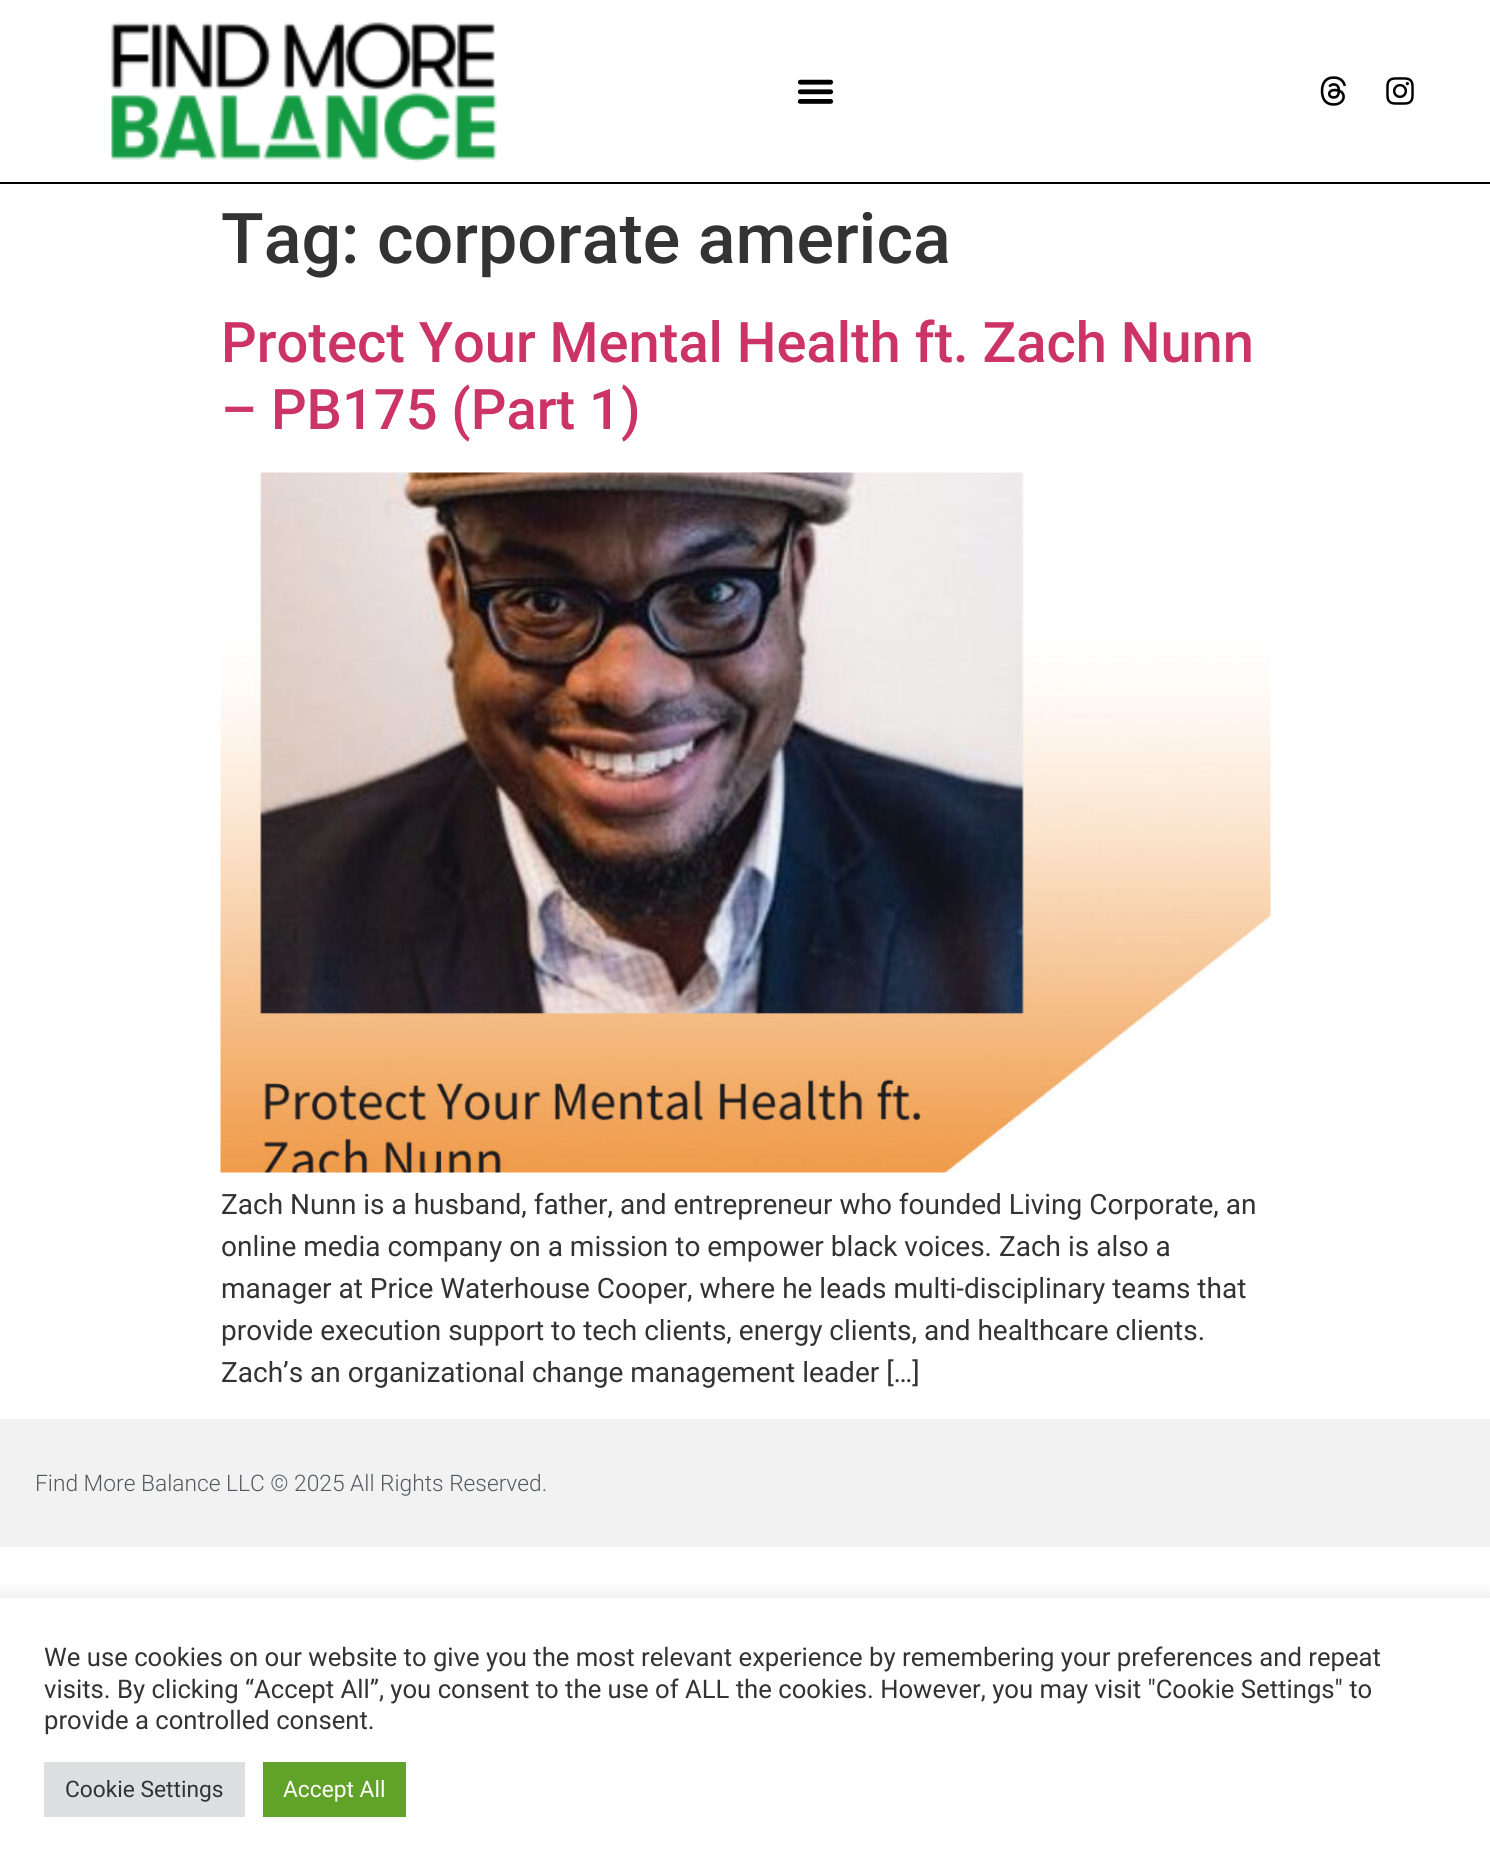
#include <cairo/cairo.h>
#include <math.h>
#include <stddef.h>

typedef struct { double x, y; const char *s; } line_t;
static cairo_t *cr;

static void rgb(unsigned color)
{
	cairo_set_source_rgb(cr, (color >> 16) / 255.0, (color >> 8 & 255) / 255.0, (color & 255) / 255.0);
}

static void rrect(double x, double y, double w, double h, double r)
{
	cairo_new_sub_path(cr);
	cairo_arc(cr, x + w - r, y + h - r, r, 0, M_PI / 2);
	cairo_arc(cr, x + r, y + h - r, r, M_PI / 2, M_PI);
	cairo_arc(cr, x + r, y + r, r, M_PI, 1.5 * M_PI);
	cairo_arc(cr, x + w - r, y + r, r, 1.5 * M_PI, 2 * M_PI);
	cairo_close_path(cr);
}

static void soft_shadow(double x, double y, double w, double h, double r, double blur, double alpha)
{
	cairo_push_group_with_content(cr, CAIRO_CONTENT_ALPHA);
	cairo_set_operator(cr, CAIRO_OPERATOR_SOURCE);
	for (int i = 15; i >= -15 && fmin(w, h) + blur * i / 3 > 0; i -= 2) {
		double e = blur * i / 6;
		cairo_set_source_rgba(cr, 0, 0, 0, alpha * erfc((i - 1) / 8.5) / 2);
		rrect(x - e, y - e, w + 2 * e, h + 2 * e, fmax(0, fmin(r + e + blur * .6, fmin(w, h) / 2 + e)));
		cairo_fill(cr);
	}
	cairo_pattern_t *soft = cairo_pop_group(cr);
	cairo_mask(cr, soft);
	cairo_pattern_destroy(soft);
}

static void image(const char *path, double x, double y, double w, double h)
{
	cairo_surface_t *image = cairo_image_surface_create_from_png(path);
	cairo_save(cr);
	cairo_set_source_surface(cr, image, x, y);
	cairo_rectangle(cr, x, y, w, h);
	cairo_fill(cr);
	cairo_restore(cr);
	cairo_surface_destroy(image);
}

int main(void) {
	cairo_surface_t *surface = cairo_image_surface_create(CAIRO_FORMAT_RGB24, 1490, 1868);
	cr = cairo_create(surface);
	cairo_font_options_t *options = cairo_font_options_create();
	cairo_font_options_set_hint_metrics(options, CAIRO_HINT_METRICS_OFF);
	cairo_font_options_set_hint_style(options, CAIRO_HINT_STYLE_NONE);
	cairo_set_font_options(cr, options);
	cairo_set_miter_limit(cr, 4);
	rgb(0xffffff);
	cairo_paint(cr);
	rgb(0x000000);
	cairo_rectangle(cr, 0, 182, 1490, 2);
	cairo_fill(cr);
	image("img/1.png", 111, 22, 386, 140);
	image("img/2.png", 797, 79, 37, 25);
	image("img/3.png", 1320, 76, 27, 30);
	image("img/4.png", 1386, 77, 28, 28);
	image("img/5.png", 220, 472, 1051, 701);
	rgb(0xf2f2f2);
	cairo_rectangle(cr, 0, 1419, 1490, 128);
	cairo_fill(cr);
	cairo_save(cr);
	cairo_rectangle(cr, 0, 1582, 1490, 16);
	cairo_clip(cr);
	rgb(0xacabab);
	soft_shadow(0, 1596, 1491, 271, 0, 9, 0.3);
	cairo_restore(cr);
	rgb(0xdedfe0);
	cairo_rectangle(cr, 44, 1762, 201, 55);
	cairo_fill(cr);
	rgb(0x61a229);
	cairo_rectangle(cr, 263, 1762, 143, 55);
	cairo_fill(cr);
	cairo_select_font_face(cr, "Roboto Medium", CAIRO_FONT_SLANT_NORMAL, CAIRO_FONT_WEIGHT_NORMAL);
	cairo_set_font_size(cr, 70);
	rgb(0x333333);
	cairo_move_to(cr, 221, 263);
	cairo_show_text(cr, "Tag: corporate america");
	cairo_set_font_size(cr, 56);
	rgb(0xcc3366);
	cairo_move_to(cr, 221, 362);
	cairo_show_text(cr, "Protect Your Mental Health ft. Zach Nunn");
	cairo_move_to(cr, 221, 429);
	cairo_show_text(cr, "– PB175 (Part 1)");
	cairo_select_font_face(cr, "Roboto", CAIRO_FONT_SLANT_NORMAL, CAIRO_FONT_WEIGHT_NORMAL);
	cairo_set_font_size(cr, 28);
	rgb(0x333333);
	{
		static const line_t items[] = {
			{221, 1214, "Zach Nunn is a husband, father, and entrepreneur who founded Living Corporate, an"},
			{221, 1256, "online media company on a mission to empower black voices. Zach is also a"},
			{221, 1298, "manager at Price Waterhouse Cooper, where he leads multi-disciplinary teams that"},
			{221, 1340, "provide execution support to tech clients, energy clients, and healthcare clients."},
			{221, 1382, "Zach’s an organizational change management leader […]"},
		};
		for (size_t i = 0; i < sizeof items / sizeof *items; i++) {
			cairo_move_to(cr, items[i].x, items[i].y);
			cairo_show_text(cr, items[i].s);
		}
	}
	cairo_select_font_face(cr, "Roboto Light", CAIRO_FONT_SLANT_NORMAL, CAIRO_FONT_WEIGHT_NORMAL);
	cairo_set_font_size(cr, 22.75);
	rgb(0x54595f);
	cairo_move_to(cr, 35, 1491);
	cairo_show_text(cr, "Find More Balance LLC © 2025 All Rights Reserved.");
	cairo_select_font_face(cr, "Roboto", CAIRO_FONT_SLANT_NORMAL, CAIRO_FONT_WEIGHT_NORMAL);
	cairo_set_font_size(cr, 25.67);
	rgb(0x333333);
	{
		static const line_t items[] = {
			{44, 1666, "We use cookies on our website to give you the most relevant experience by remembering your preferences and repeat"},
			{44, 1698, "visits. By clicking “Accept All”, you consent to the use of ALL the cookies. However, you may visit \"Cookie Settings\" to"},
			{44, 1729, "provide a controlled consent."},
		};
		for (size_t i = 0; i < sizeof items / sizeof *items; i++) {
			cairo_move_to(cr, items[i].x, items[i].y);
			cairo_show_text(cr, items[i].s);
		}
	}
	cairo_set_font_size(cr, 22.75);
	cairo_move_to(cr, 65, 1797);
	cairo_show_text(cr, "Cookie Settings");
	rgb(0xffffff);
	cairo_move_to(cr, 283, 1797);
	cairo_show_text(cr, "Accept All");
	cairo_surface_write_to_png(surface, "page.png");
	cairo_font_options_destroy(options);
	cairo_destroy(cr);
	cairo_surface_destroy(surface);
	return 0;
}
